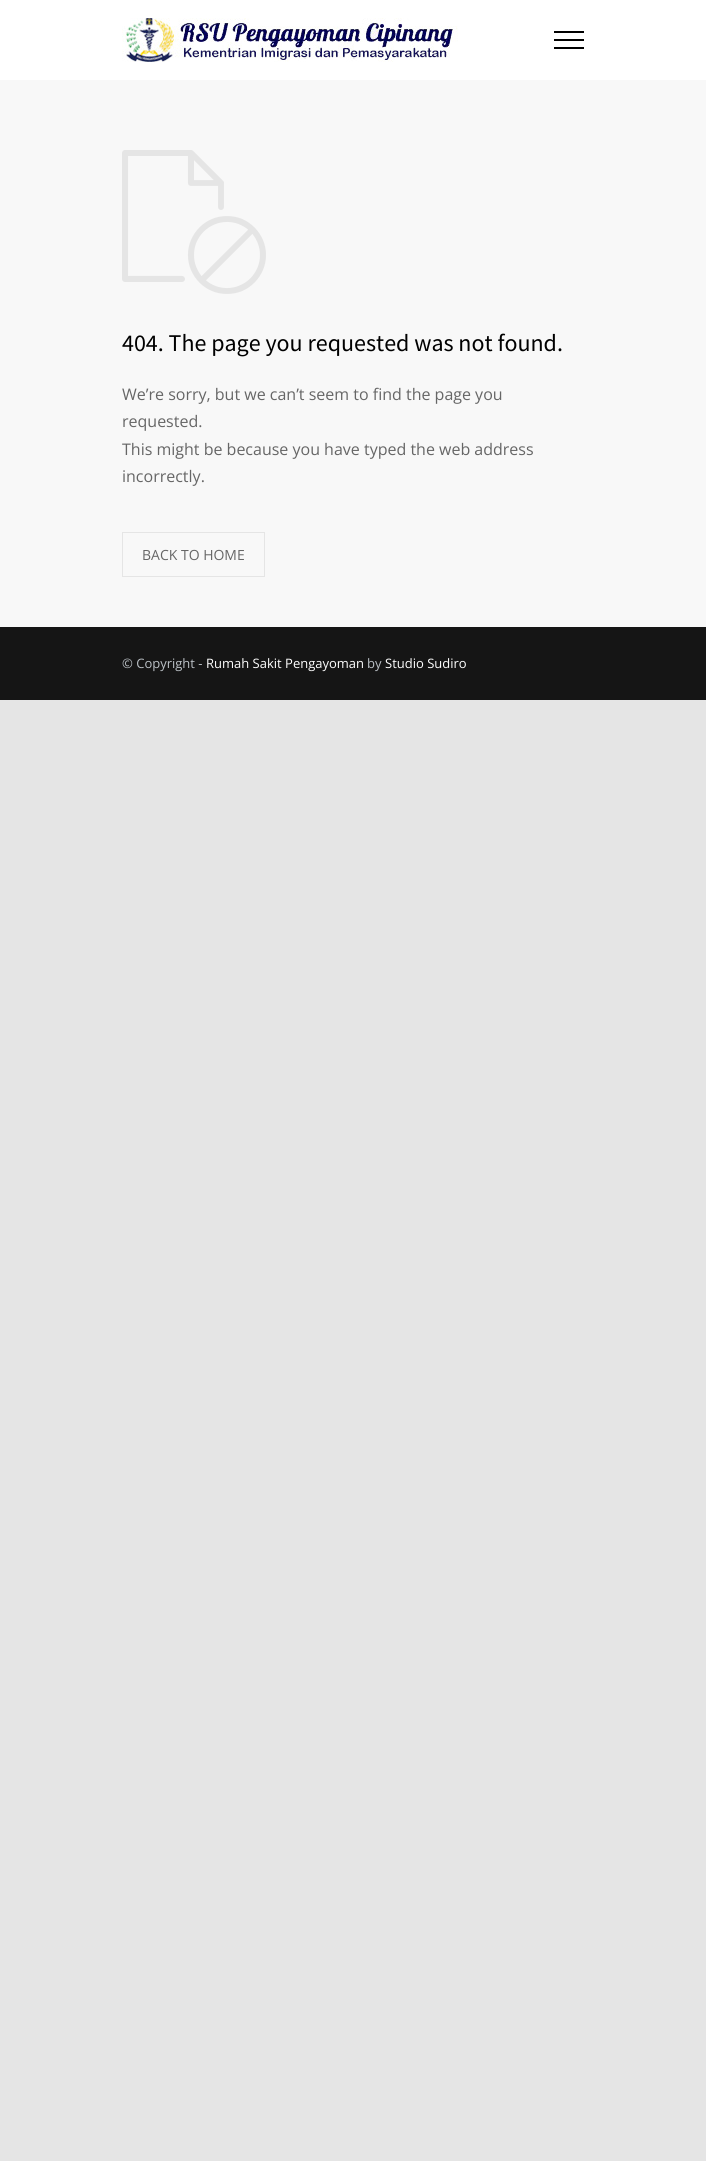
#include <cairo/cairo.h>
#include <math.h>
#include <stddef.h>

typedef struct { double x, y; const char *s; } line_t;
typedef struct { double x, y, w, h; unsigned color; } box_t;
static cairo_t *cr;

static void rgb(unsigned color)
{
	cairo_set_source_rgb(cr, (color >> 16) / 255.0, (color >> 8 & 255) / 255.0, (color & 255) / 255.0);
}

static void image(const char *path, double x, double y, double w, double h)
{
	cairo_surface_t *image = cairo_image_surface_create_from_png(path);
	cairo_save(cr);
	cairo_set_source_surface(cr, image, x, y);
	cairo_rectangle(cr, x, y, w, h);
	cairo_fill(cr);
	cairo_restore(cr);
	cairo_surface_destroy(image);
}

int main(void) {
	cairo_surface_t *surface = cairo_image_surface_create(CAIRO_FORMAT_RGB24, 706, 2161);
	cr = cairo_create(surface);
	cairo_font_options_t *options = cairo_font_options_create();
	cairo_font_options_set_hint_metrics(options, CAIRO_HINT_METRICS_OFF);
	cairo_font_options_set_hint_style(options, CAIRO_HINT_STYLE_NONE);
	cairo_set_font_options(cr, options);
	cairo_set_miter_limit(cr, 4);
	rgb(0xe5e5e5);
	cairo_paint(cr);
	rgb(0xf8f8f8);
	cairo_rectangle(cr, 0, 80, 706, 547);
	cairo_fill(cr);
	rgb(0xffffff);
	cairo_rectangle(cr, 0, 0, 706, 80);
	cairo_fill(cr);
	image("img/1.png", 122, 18, 336, 44);
	{
		static const box_t items[] = {
			{554, 31, 30, 2, 0x000000},
			{554, 39, 30, 2, 0x000000},
			{554, 47, 30, 2, 0x000000},
		};
		for (size_t i = 0; i < sizeof items / sizeof *items; i++) {
			rgb(items[i].color);
			cairo_rectangle(cr, items[i].x, items[i].y, items[i].w, items[i].h);
			cairo_fill(cr);
		}
	}
	image("img/2.png", 122, 150, 144, 144);
	cairo_rectangle(cr, 122.5, 532.5, 142, 44);
	rgb(0xe5e5e5);
	cairo_set_line_width(cr, 1);
	cairo_stroke(cr);
	rgb(0x151515);
	cairo_rectangle(cr, 0, 627, 706, 73);
	cairo_fill(cr);
	cairo_select_font_face(cr, "Source Sans Pro", CAIRO_FONT_SLANT_NORMAL, CAIRO_FONT_WEIGHT_NORMAL);
	cairo_set_font_size(cr, 24);
	rgb(0x000000);
	cairo_move_to(cr, 122, 351);
	cairo_show_text(cr, "404. The page you requested was not found.");
	cairo_select_font_face(cr, "Open Sans", CAIRO_FONT_SLANT_NORMAL, CAIRO_FONT_WEIGHT_NORMAL);
	cairo_set_font_size(cr, 16);
	rgb(0x666666);
	{
		static const line_t items[] = {
			{122, 400, "We’re sorry, but we can’t seem to find the page you"},
			{122, 427, "requested."},
			{122, 455, "This might be because you have typed the web address"},
			{122, 482, "incorrectly."},
		};
		for (size_t i = 0; i < sizeof items / sizeof *items; i++) {
			cairo_move_to(cr, items[i].x, items[i].y);
			cairo_show_text(cr, items[i].s);
		}
	}
	cairo_set_font_size(cr, 14);
	cairo_move_to(cr, 142, 560);
	cairo_show_text(cr, "BACK TO HOME");
	cairo_set_font_size(cr, 13);
	rgb(0xbac0c5);
	cairo_move_to(cr, 122, 668);
	cairo_show_text(cr, "© Copyright -");
	rgb(0xffffff);
	cairo_move_to(cr, 206, 668);
	cairo_show_text(cr, "Rumah Sakit Pengayoman");
	rgb(0xbac0c5);
	cairo_move_to(cr, 367, 668);
	cairo_show_text(cr, "by");
	rgb(0xffffff);
	cairo_move_to(cr, 385, 668);
	cairo_show_text(cr, "Studio Sudiro");
	cairo_surface_write_to_png(surface, "page.png");
	cairo_font_options_destroy(options);
	cairo_destroy(cr);
	cairo_surface_destroy(surface);
	return 0;
}
